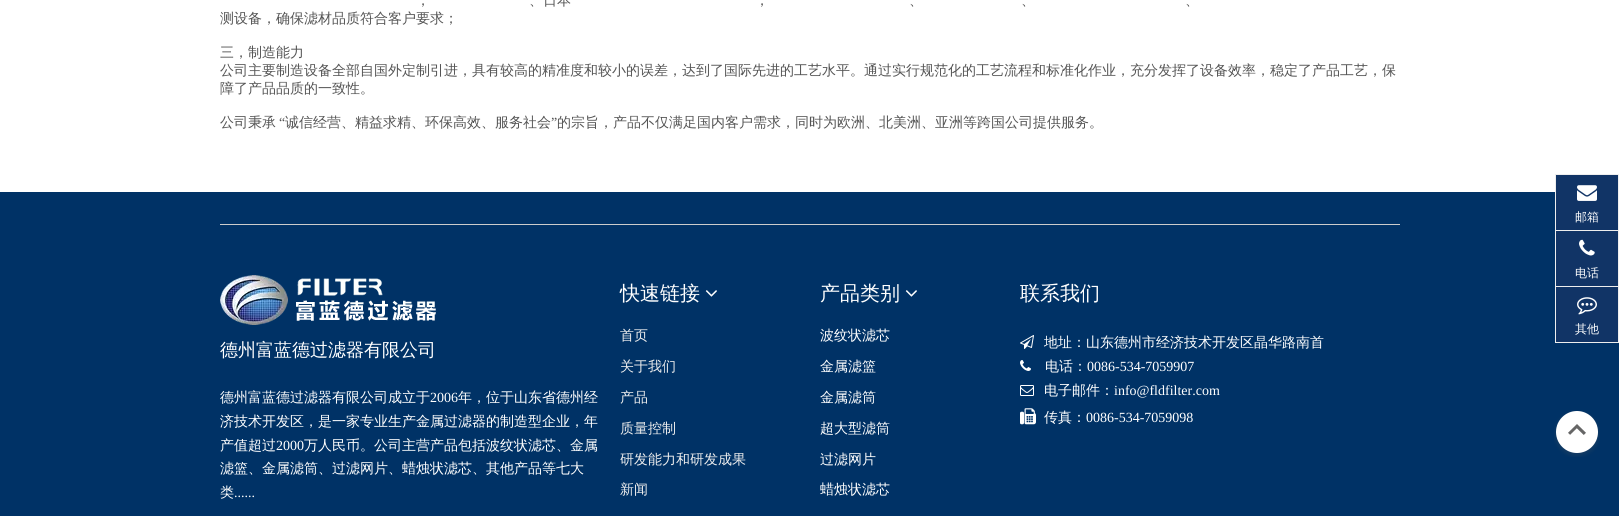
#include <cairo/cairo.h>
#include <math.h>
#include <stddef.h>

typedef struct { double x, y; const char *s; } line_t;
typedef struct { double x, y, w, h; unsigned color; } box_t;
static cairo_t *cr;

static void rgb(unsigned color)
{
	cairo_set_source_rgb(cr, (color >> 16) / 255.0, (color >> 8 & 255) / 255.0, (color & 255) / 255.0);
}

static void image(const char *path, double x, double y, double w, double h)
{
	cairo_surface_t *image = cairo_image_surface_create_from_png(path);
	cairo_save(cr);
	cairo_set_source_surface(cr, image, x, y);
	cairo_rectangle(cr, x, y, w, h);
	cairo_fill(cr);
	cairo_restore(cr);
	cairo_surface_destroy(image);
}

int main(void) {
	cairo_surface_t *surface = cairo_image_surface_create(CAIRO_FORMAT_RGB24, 1619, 516);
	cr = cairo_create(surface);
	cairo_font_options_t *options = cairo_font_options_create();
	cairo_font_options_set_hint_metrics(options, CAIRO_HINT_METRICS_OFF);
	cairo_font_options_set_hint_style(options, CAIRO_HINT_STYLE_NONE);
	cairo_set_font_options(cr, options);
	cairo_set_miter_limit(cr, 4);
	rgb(0xffffff);
	cairo_paint(cr);
	{
		static const box_t items[] = {
			{0, 192, 1619, 324, 0x003266},
			{220, 224, 1180, 1, 0xcccccc},
			{1556, 175, 62, 55, 0x113466},
			{1555, 174, 64, 1, 0xeeeeee},
			{1618, 174, 1, 56, 0xeeeeee},
			{1555, 174, 1, 56, 0xeeeeee},
		};
		for (size_t i = 0; i < sizeof items / sizeof *items; i++) {
			rgb(items[i].color);
			cairo_rectangle(cr, items[i].x, items[i].y, items[i].w, items[i].h);
			cairo_fill(cr);
		}
	}
	image("img/1.png", 1577, 185, 20, 16);
	{
		static const box_t items[] = {
			{1556, 231, 62, 55, 0x113466},
			{1555, 230, 64, 1, 0xeeeeee},
			{1618, 230, 1, 56, 0xeeeeee},
			{1555, 230, 1, 56, 0xeeeeee},
		};
		for (size_t i = 0; i < sizeof items / sizeof *items; i++) {
			rgb(items[i].color);
			cairo_rectangle(cr, items[i].x, items[i].y, items[i].w, items[i].h);
			cairo_fill(cr);
		}
	}
	image("img/2.png", 1579, 239, 16, 17);
	rgb(0x113466);
	cairo_rectangle(cr, 1555.5, 286.5, 63, 56);
	cairo_fill_preserve(cr);
	rgb(0xeeeeee);
	cairo_set_line_width(cr, 1);
	cairo_stroke(cr);
	image("img/3.png", 1577, 297, 20, 18);
	image("img/4.png", 220, 275, 216, 50);
	image("img/5.png", 705, 290, 12, 7);
	image("img/5.png", 905, 290, 12, 7);
	image("img/6.png", 1020, 335, 14, 14);
	image("img/7.png", 1020, 360, 11, 11);
	image("img/8.png", 1020, 385, 14, 11);
	image("img/9.png", 1020, 408, 16, 17);
	image("img/10.png", 1554, 411, 46, 46);
	cairo_select_font_face(cr, "WenQuanYi Zen Hei Medium", CAIRO_FONT_SLANT_NORMAL, CAIRO_FONT_WEIGHT_NORMAL);
	cairo_set_font_size(cr, 14);
	rgb(0x545454);
	{
		static const line_t items[] = {
			{416, 5, "，"},
			{529, 5, "、日本"},
			{755, 5, "，"},
			{909, 5, "、"},
			{1021, 5, "、"},
			{1185, 5, "、"},
			{220, 23, "测设备，确保滤材品质符合客户要求；"},
			{220, 57, "三，制造能力"},
			{220, 75, "公司主要制造设备全部自国外定制引进，具有较高的精准度和较小的误差，达到了国际先进的工艺水平。通过实行规范化的工艺流程和标准化作业，充分发挥了设备效率，稳定了产品工艺，保"},
			{220, 93, "障了产品品质的一致性。"},
			{220, 127, "公司秉承"},
		};
		for (size_t i = 0; i < sizeof items / sizeof *items; i++) {
			cairo_move_to(cr, items[i].x, items[i].y);
			cairo_show_text(cr, items[i].s);
		}
	}
	cairo_select_font_face(cr, "Liberation Serif", CAIRO_FONT_SLANT_NORMAL, CAIRO_FONT_WEIGHT_NORMAL);
	cairo_move_to(cr, 279, 127);
	cairo_show_text(cr, "“");
	cairo_select_font_face(cr, "WenQuanYi Zen Hei Medium", CAIRO_FONT_SLANT_NORMAL, CAIRO_FONT_WEIGHT_NORMAL);
	cairo_move_to(cr, 285, 127);
	cairo_show_text(cr, "诚信经营、精益求精、环保高效、服务社会");
	cairo_select_font_face(cr, "Liberation Serif", CAIRO_FONT_SLANT_NORMAL, CAIRO_FONT_WEIGHT_NORMAL);
	cairo_move_to(cr, 551, 127);
	cairo_show_text(cr, "”");
	cairo_select_font_face(cr, "WenQuanYi Zen Hei Medium", CAIRO_FONT_SLANT_NORMAL, CAIRO_FONT_WEIGHT_NORMAL);
	cairo_move_to(cr, 557, 127);
	cairo_show_text(cr, "的宗旨，产品不仅满足国内客户需求，同时为欧洲、北美洲、亚洲等跨国公司提供服务。");
	cairo_set_font_size(cr, 12);
	rgb(0xffffff);
	{
		static const line_t items[] = {
			{1575, 221, "邮箱"},
			{1575, 277, "电话"},
			{1575, 333, "其他"},
		};
		for (size_t i = 0; i < sizeof items / sizeof *items; i++) {
			cairo_move_to(cr, items[i].x, items[i].y);
			cairo_show_text(cr, items[i].s);
		}
	}
	cairo_set_font_size(cr, 18);
	cairo_move_to(cr, 220, 356);
	cairo_show_text(cr, "德州富蓝德过滤器有限公司");
	cairo_set_font_size(cr, 14);
	cairo_move_to(cr, 220, 402);
	cairo_show_text(cr, "德州富蓝德过滤器有限公司成立于");
	cairo_select_font_face(cr, "Liberation Serif", CAIRO_FONT_SLANT_NORMAL, CAIRO_FONT_WEIGHT_NORMAL);
	cairo_move_to(cr, 430, 402);
	cairo_show_text(cr, "2006");
	cairo_select_font_face(cr, "WenQuanYi Zen Hei Medium", CAIRO_FONT_SLANT_NORMAL, CAIRO_FONT_WEIGHT_NORMAL);
	{
		static const line_t items[] = {
			{458, 402, "年，位于山东省德州经"},
			{220, 426, "济技术开发区，是一家专业生产金属过滤器的制造型企业，年"},
			{220, 450, "产值超过"},
		};
		for (size_t i = 0; i < sizeof items / sizeof *items; i++) {
			cairo_move_to(cr, items[i].x, items[i].y);
			cairo_show_text(cr, items[i].s);
		}
	}
	cairo_select_font_face(cr, "Liberation Serif", CAIRO_FONT_SLANT_NORMAL, CAIRO_FONT_WEIGHT_NORMAL);
	cairo_move_to(cr, 276, 450);
	cairo_show_text(cr, "2000");
	cairo_select_font_face(cr, "WenQuanYi Zen Hei Medium", CAIRO_FONT_SLANT_NORMAL, CAIRO_FONT_WEIGHT_NORMAL);
	{
		static const line_t items[] = {
			{304, 450, "万人民币。公司主营产品包括波纹状滤芯、金属"},
			{220, 473, "滤篮、金属滤筒、过滤网片、蜡烛状滤芯、其他产品等七大"},
			{220, 497, "类"},
		};
		for (size_t i = 0; i < sizeof items / sizeof *items; i++) {
			cairo_move_to(cr, items[i].x, items[i].y);
			cairo_show_text(cr, items[i].s);
		}
	}
	cairo_select_font_face(cr, "Liberation Serif", CAIRO_FONT_SLANT_NORMAL, CAIRO_FONT_WEIGHT_NORMAL);
	cairo_move_to(cr, 234, 497);
	cairo_show_text(cr, "......");
	cairo_select_font_face(cr, "WenQuanYi Zen Hei Medium", CAIRO_FONT_SLANT_NORMAL, CAIRO_FONT_WEIGHT_NORMAL);
	cairo_set_font_size(cr, 20);
	cairo_move_to(cr, 620, 300);
	cairo_show_text(cr, "快速链接");
	cairo_set_font_size(cr, 14);
	rgb(0xeeeeee);
	{
		static const line_t items[] = {
			{620, 340, "首页"},
			{620, 371, "关于我们"},
			{620, 402, "产品"},
			{620, 433, "质量控制"},
			{620, 464, "研发能力和研发成果"},
			{620, 494, "新闻"},
		};
		for (size_t i = 0; i < sizeof items / sizeof *items; i++) {
			cairo_move_to(cr, items[i].x, items[i].y);
			cairo_show_text(cr, items[i].s);
		}
	}
	cairo_set_font_size(cr, 20);
	rgb(0xffffff);
	cairo_move_to(cr, 820, 300);
	cairo_show_text(cr, "产品类别");
	cairo_set_font_size(cr, 14);
	{
		static const line_t items[] = {
			{820, 340, "波纹状滤芯"},
			{820, 371, "金属滤篮"},
			{820, 402, "金属滤筒"},
			{820, 433, "超大型滤筒"},
			{820, 464, "过滤网片"},
			{820, 494, "蜡烛状滤芯"},
		};
		for (size_t i = 0; i < sizeof items / sizeof *items; i++) {
			cairo_move_to(cr, items[i].x, items[i].y);
			cairo_show_text(cr, items[i].s);
		}
	}
	cairo_set_font_size(cr, 20);
	cairo_move_to(cr, 1020, 300);
	cairo_show_text(cr, "联系我们");
	cairo_set_font_size(cr, 14);
	cairo_move_to(cr, 1044, 347);
	cairo_show_text(cr, "地址：山东德州市经济技术开发区晶华路南首");
	cairo_move_to(cr, 1045, 371);
	cairo_show_text(cr, "电话：");
	cairo_select_font_face(cr, "Liberation Serif", CAIRO_FONT_SLANT_NORMAL, CAIRO_FONT_WEIGHT_NORMAL);
	cairo_move_to(cr, 1087, 371);
	cairo_show_text(cr, "0086-534-7059907");
	cairo_select_font_face(cr, "WenQuanYi Zen Hei Medium", CAIRO_FONT_SLANT_NORMAL, CAIRO_FONT_WEIGHT_NORMAL);
	cairo_move_to(cr, 1044, 395);
	cairo_show_text(cr, "电子邮件：");
	cairo_select_font_face(cr, "Liberation Serif", CAIRO_FONT_SLANT_NORMAL, CAIRO_FONT_WEIGHT_NORMAL);
	cairo_move_to(cr, 1114, 395);
	cairo_show_text(cr, "info@fldfilter.com");
	cairo_select_font_face(cr, "WenQuanYi Zen Hei Medium", CAIRO_FONT_SLANT_NORMAL, CAIRO_FONT_WEIGHT_NORMAL);
	cairo_move_to(cr, 1044, 422);
	cairo_show_text(cr, "传真：");
	cairo_select_font_face(cr, "Liberation Serif", CAIRO_FONT_SLANT_NORMAL, CAIRO_FONT_WEIGHT_NORMAL);
	cairo_move_to(cr, 1086, 422);
	cairo_show_text(cr, "0086-534-7059098");
	cairo_surface_write_to_png(surface, "page.png");
	cairo_font_options_destroy(options);
	cairo_destroy(cr);
	cairo_surface_destroy(surface);
	return 0;
}
